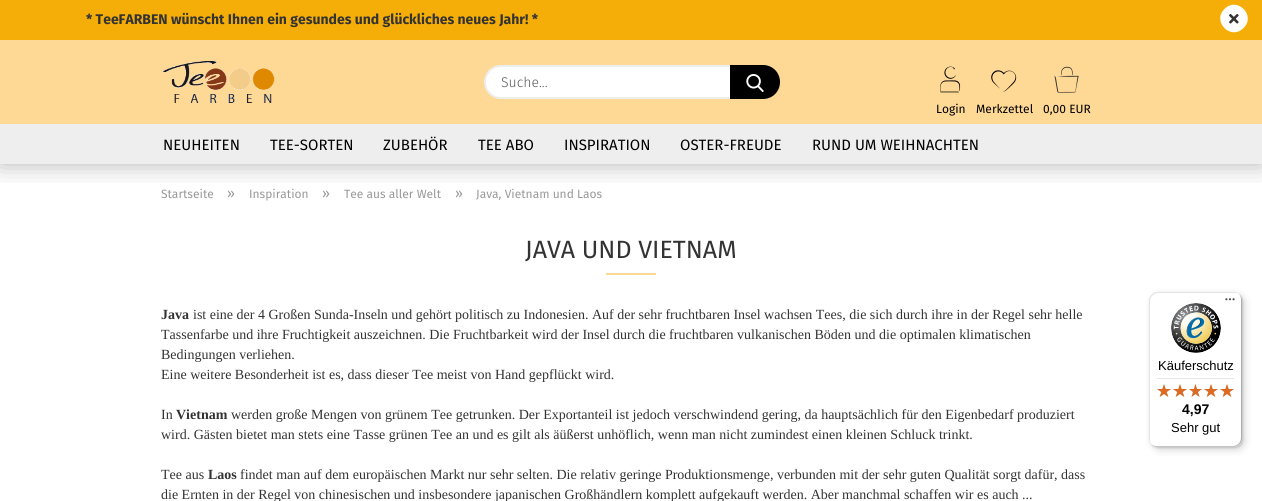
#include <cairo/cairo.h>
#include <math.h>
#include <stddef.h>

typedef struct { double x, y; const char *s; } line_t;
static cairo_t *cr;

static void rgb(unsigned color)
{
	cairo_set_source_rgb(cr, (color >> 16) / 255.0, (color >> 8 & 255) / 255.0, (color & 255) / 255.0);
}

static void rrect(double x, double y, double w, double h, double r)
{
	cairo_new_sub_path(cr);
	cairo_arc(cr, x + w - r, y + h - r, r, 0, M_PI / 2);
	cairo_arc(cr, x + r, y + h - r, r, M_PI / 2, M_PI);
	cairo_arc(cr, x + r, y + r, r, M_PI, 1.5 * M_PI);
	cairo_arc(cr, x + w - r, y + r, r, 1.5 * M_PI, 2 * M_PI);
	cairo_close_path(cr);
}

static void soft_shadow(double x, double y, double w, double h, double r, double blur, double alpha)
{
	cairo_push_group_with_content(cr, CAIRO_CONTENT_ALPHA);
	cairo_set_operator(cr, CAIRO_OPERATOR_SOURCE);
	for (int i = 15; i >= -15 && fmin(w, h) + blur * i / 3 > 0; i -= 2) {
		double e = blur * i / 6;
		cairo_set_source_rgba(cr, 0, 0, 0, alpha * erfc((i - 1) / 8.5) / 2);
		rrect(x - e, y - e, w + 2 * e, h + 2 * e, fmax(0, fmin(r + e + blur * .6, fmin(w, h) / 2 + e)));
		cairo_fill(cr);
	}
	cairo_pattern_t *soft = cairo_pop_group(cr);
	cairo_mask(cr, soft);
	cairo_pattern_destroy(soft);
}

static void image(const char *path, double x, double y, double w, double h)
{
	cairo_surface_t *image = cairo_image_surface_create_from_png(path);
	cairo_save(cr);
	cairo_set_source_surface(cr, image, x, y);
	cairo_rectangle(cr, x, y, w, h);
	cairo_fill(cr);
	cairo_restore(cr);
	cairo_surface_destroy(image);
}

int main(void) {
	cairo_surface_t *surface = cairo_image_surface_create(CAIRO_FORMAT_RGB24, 1262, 501);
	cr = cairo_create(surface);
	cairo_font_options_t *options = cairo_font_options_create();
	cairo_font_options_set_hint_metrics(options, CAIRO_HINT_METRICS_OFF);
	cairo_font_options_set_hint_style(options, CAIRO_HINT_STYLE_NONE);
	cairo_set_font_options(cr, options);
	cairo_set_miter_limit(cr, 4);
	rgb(0xfed895);
	cairo_paint(cr);
	rgb(0xffffff);
	cairo_rectangle(cr, 0, 164, 1262, 337);
	cairo_fill(cr);
	cairo_save(cr);
	cairo_rectangle(cr, 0, 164, 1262, 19);
	cairo_clip(cr);
	rgb(0x000000);
	soft_shadow(0, 0, 1262, 164, 0, 12.5, 0.3);
	cairo_restore(cr);
	rgb(0xf5ae07);
	cairo_rectangle(cr, 0, 0, 1262, 40);
	cairo_fill(cr);
	rgb(0xffffff);
	cairo_new_path(cr);
	cairo_move_to(cr, 1224.5, 9);
	cairo_curve_to(cr, 1237, -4, 1256.5, 15.5, 1243.5, 28);
	cairo_curve_to(cr, 1231, 41, 1211.5, 21.5, 1224.5, 9);
	cairo_close_path(cr);
	cairo_fill(cr);
	image("img/1.png", 1229, 14, 10, 10);
	image("img/2.png", 163, 61, 112, 42);
	rrect(485, 66, 292, 32, 16);
	cairo_fill_preserve(cr);
	rgb(0xeeeeee);
	cairo_stroke(cr);
	rgb(0x000000);
	cairo_new_path(cr);
	cairo_move_to(cr, 730, 65);
	cairo_line_to(cr, 763, 65);
	cairo_curve_to(cr, 772.5, 65, 780, 72.5, 780, 82);
	cairo_curve_to(cr, 780, 91.5, 772.5, 99, 763, 99);
	cairo_line_to(cr, 730, 99);
	cairo_close_path(cr);
	cairo_fill(cr);
	image("img/3.png", 746, 74, 18, 18);
	image("img/4.png", 940, 66, 21, 27);
	image("img/5.png", 991, 70, 26, 22);
	image("img/6.png", 1054, 66, 25, 27);
	rgb(0xeeeeee);
	cairo_rectangle(cr, 0, 124, 1262, 40);
	cairo_fill(cr);
	rgb(0xfed895);
	cairo_rectangle(cr, 606, 273, 50, 2);
	cairo_fill(cr);
	rgb(0x000000);
	soft_shadow(1152, 295, 93, 155, 8, 4, 0.15);
	soft_shadow(1150, 293, 93, 155, 8, 1, 0.15);
	rgb(0xffffff);
	rrect(1149, 292, 93, 155, 8);
	cairo_fill(cr);
	rgb(0xe5e5e5);
	cairo_new_path(cr);
	cairo_move_to(cr, 1158, 293);
	cairo_line_to(cr, 1235, 293);
	cairo_curve_to(cr, 1237, 293, 1239, 294, 1241, 296);
	cairo_curve_to(cr, 1239, 294, 1237, 292, 1234, 292);
	cairo_line_to(cr, 1157, 292);
	cairo_curve_to(cr, 1153, 292, 1149, 296, 1149, 300);
	cairo_line_to(cr, 1149, 439);
	cairo_curve_to(cr, 1149, 442, 1151, 444, 1153, 446);
	cairo_curve_to(cr, 1151, 444, 1150, 442, 1150, 440);
	cairo_line_to(cr, 1150, 301);
	cairo_curve_to(cr, 1150, 297, 1154, 293, 1158, 293);
	cairo_close_path(cr);
	cairo_fill(cr);
	rgb(0xcccccc);
	cairo_new_path(cr);
	cairo_move_to(cr, 1150, 443);
	cairo_curve_to(cr, 1152, 445, 1154, 447, 1157, 447);
	cairo_line_to(cr, 1234, 447);
	cairo_curve_to(cr, 1238, 447, 1242, 443, 1242, 439);
	cairo_line_to(cr, 1242, 300);
	cairo_curve_to(cr, 1242, 297, 1240, 295, 1238, 293);
	cairo_curve_to(cr, 1240, 295, 1241, 297, 1241, 299);
	cairo_line_to(cr, 1241, 438);
	cairo_curve_to(cr, 1241, 442, 1237, 446, 1233, 446);
	cairo_line_to(cr, 1156, 446);
	cairo_curve_to(cr, 1154, 446, 1152, 445, 1150, 443);
	cairo_close_path(cr);
	cairo_fill(cr);
	cairo_set_source_rgba(cr, 0.196, 0.196, 0.196, 0.2);
	cairo_new_path(cr);
	cairo_move_to(cr, 1151, 444);
	cairo_curve_to(cr, 1152, 446, 1155, 447, 1157, 447);
	cairo_line_to(cr, 1234, 447);
	cairo_curve_to(cr, 1238, 447, 1242, 443, 1242, 439);
	cairo_line_to(cr, 1242, 300);
	cairo_curve_to(cr, 1242, 298, 1241, 295, 1239, 294);
	cairo_curve_to(cr, 1240, 295, 1241, 297, 1241, 299);
	cairo_line_to(cr, 1241, 438);
	cairo_curve_to(cr, 1241, 443, 1238, 446, 1233, 446);
	cairo_line_to(cr, 1156, 446);
	cairo_curve_to(cr, 1154, 446, 1152, 445, 1151, 444);
	cairo_close_path(cr);
	cairo_fill(cr);
	image("img/7.png", 1225, 298, 10, 3);
	cairo_set_source_rgba(cr, 1, 1, 1, 0.3);
	cairo_new_path(cr);
	cairo_move_to(cr, 1151, 444);
	cairo_curve_to(cr, 1152, 446, 1155, 447, 1157, 447);
	cairo_line_to(cr, 1234, 447);
	cairo_curve_to(cr, 1238, 447, 1242, 443, 1242, 439);
	cairo_line_to(cr, 1242, 438);
	cairo_curve_to(cr, 1242, 443, 1238, 446, 1234, 446);
	cairo_line_to(cr, 1156, 446);
	cairo_curve_to(cr, 1154, 446, 1152, 445, 1151, 444);
	cairo_close_path(cr);
	cairo_fill(cr);
	image("img/8.png", 1171, 303, 50, 50);
	rgb(0xe5e5e5);
	cairo_rectangle(cr, 1157, 378, 77, 1);
	cairo_fill(cr);
	image("img/9.png", 1157, 384, 14, 13);
	image("img/9.png", 1173, 384, 14, 13);
	image("img/10.png", 1189, 384, 13, 13);
	image("img/9.png", 1204, 384, 14, 13);
	image("img/9.png", 1220, 384, 14, 13);
	image("img/11.png", 1157, 384, 14, 13);
	image("img/11.png", 1173, 384, 14, 13);
	image("img/12.png", 1189, 384, 13, 13);
	image("img/11.png", 1204, 384, 14, 13);
	image("img/11.png", 1220, 384, 14, 13);
	cairo_select_font_face(cr, "Fira Sans", CAIRO_FONT_SLANT_NORMAL, CAIRO_FONT_WEIGHT_BOLD);
	cairo_set_font_size(cr, 14);
	rgb(0x333333);
	cairo_move_to(cr, 86, 24);
	cairo_show_text(cr, "* TeeFARBEN wünscht Ihnen ein gesundes und glückliches neues Jahr! *");
	cairo_select_font_face(cr, "Fira Sans Light", CAIRO_FONT_SLANT_NORMAL, CAIRO_FONT_WEIGHT_NORMAL);
	rgb(0x595959);
	cairo_move_to(cr, 501, 87);
	cairo_show_text(cr, "Suche...");
	cairo_select_font_face(cr, "Fira Sans", CAIRO_FONT_SLANT_NORMAL, CAIRO_FONT_WEIGHT_NORMAL);
	cairo_set_font_size(cr, 12);
	rgb(0x000000);
	{
		static const line_t items[] = {
			{936, 113, "Login"},
			{976, 113, "Merkzettel"},
			{1043, 113, "0,00 EUR"},
		};
		for (size_t i = 0; i < sizeof items / sizeof *items; i++) {
			cairo_move_to(cr, items[i].x, items[i].y);
			cairo_show_text(cr, items[i].s);
		}
	}
	cairo_set_font_size(cr, 15);
	{
		static const line_t items[] = {
			{163, 150, "NEUHEITEN"},
			{270, 150, "TEE-SORTEN"},
			{383, 150, "ZUBEHÖR"},
			{478, 150, "TEE ABO"},
			{564, 150, "INSPIRATION"},
			{680, 150, "OSTER-FREUDE"},
			{812, 150, "RUND UM WEIHNACHTEN"},
		};
		for (size_t i = 0; i < sizeof items / sizeof *items; i++) {
			cairo_move_to(cr, items[i].x, items[i].y);
			cairo_show_text(cr, items[i].s);
		}
	}
	cairo_set_font_size(cr, 12);
	rgb(0x999999);
	cairo_move_to(cr, 161, 198);
	cairo_show_text(cr, "Startseite");
	cairo_set_font_size(cr, 14);
	cairo_move_to(cr, 227, 198);
	cairo_show_text(cr, "»");
	cairo_set_font_size(cr, 12);
	cairo_move_to(cr, 249, 198);
	cairo_show_text(cr, "Inspiration");
	cairo_set_font_size(cr, 14);
	cairo_move_to(cr, 322, 198);
	cairo_show_text(cr, "»");
	cairo_set_font_size(cr, 12);
	cairo_move_to(cr, 344, 198);
	cairo_show_text(cr, "Tee aus aller Welt");
	cairo_set_font_size(cr, 14);
	cairo_move_to(cr, 455, 198);
	cairo_show_text(cr, "»");
	cairo_set_font_size(cr, 12);
	cairo_move_to(cr, 476, 198);
	cairo_show_text(cr, "Java, Vietnam und Laos");
	cairo_set_font_size(cr, 25);
	rgb(0x333333);
	cairo_move_to(cr, 525, 258);
	cairo_show_text(cr, "JAVA UND VIETNAM");
	cairo_select_font_face(cr, "Liberation Serif", CAIRO_FONT_SLANT_NORMAL, CAIRO_FONT_WEIGHT_BOLD);
	cairo_set_font_size(cr, 14);
	cairo_move_to(cr, 161, 319);
	cairo_show_text(cr, "Java");
	cairo_select_font_face(cr, "Liberation Serif", CAIRO_FONT_SLANT_NORMAL, CAIRO_FONT_WEIGHT_NORMAL);
	{
		static const line_t items[] = {
			{193, 319, "ist eine der 4 Großen Sunda-Inseln und gehört politisch zu Indonesien. Auf der sehr fruchtbaren Insel wachsen Tees, die sich durch ihre in der Regel sehr helle"},
			{161, 339, "Tassenfarbe und ihre Fruchtigkeit auszeichnen. Die Fruchtbarkeit wird der Insel durch die fruchtbaren vulkanischen Böden und die optimalen klimatischen"},
			{161, 359, "Bedingungen verliehen."},
			{161, 379, "Eine weitere Besonderheit ist es, dass dieser Tee meist von Hand gepflückt wird."},
			{161, 419, "In"},
		};
		for (size_t i = 0; i < sizeof items / sizeof *items; i++) {
			cairo_move_to(cr, items[i].x, items[i].y);
			cairo_show_text(cr, items[i].s);
		}
	}
	cairo_select_font_face(cr, "Liberation Serif", CAIRO_FONT_SLANT_NORMAL, CAIRO_FONT_WEIGHT_BOLD);
	cairo_move_to(cr, 176, 419);
	cairo_show_text(cr, "Vietnam");
	cairo_select_font_face(cr, "Liberation Serif", CAIRO_FONT_SLANT_NORMAL, CAIRO_FONT_WEIGHT_NORMAL);
	{
		static const line_t items[] = {
			{231, 419, "werden große Mengen von grünem Tee getrunken. Der Exportanteil ist jedoch verschwindend gering, da hauptsächlich für den Eigenbedarf produziert"},
			{161, 439, "wird. Gästen bietet man stets eine Tasse grünen Tee an und es gilt als äüßerst unhöflich, wenn man nicht zumindest einen kleinen Schluck trinkt."},
			{161, 479, "Tee aus"},
		};
		for (size_t i = 0; i < sizeof items / sizeof *items; i++) {
			cairo_move_to(cr, items[i].x, items[i].y);
			cairo_show_text(cr, items[i].s);
		}
	}
	cairo_select_font_face(cr, "Liberation Serif", CAIRO_FONT_SLANT_NORMAL, CAIRO_FONT_WEIGHT_BOLD);
	cairo_move_to(cr, 208, 479);
	cairo_show_text(cr, "Laos");
	cairo_select_font_face(cr, "Liberation Serif", CAIRO_FONT_SLANT_NORMAL, CAIRO_FONT_WEIGHT_NORMAL);
	cairo_move_to(cr, 240, 479);
	cairo_show_text(cr, "findet man auf dem europäischen Markt nur sehr selten. Die relativ geringe Produktionsmenge, verbunden mit der sehr guten Qualität sorgt dafür, dass");
	cairo_move_to(cr, 161, 499);
	cairo_show_text(cr, "die Ernten in der Regel von chinesischen und insbesondere japanischen Großhändlern komplett aufgekauft werden. Aber manchmal schaffen wir es auch ...");
	cairo_select_font_face(cr, "Liberation Sans", CAIRO_FONT_SLANT_NORMAL, CAIRO_FONT_WEIGHT_NORMAL);
	cairo_set_font_size(cr, 13);
	rgb(0x000000);
	cairo_move_to(cr, 1158, 370);
	cairo_show_text(cr, "Käuferschutz");
	cairo_select_font_face(cr, "Liberation Sans", CAIRO_FONT_SLANT_NORMAL, CAIRO_FONT_WEIGHT_BOLD);
	cairo_set_font_size(cr, 14);
	cairo_move_to(cr, 1182, 414);
	cairo_show_text(cr, "4,97");
	cairo_select_font_face(cr, "Liberation Sans", CAIRO_FONT_SLANT_NORMAL, CAIRO_FONT_WEIGHT_NORMAL);
	cairo_set_font_size(cr, 13);
	cairo_move_to(cr, 1171, 432);
	cairo_show_text(cr, "Sehr gut");
	cairo_surface_write_to_png(surface, "page.png");
	cairo_font_options_destroy(options);
	cairo_destroy(cr);
	cairo_surface_destroy(surface);
	return 0;
}
